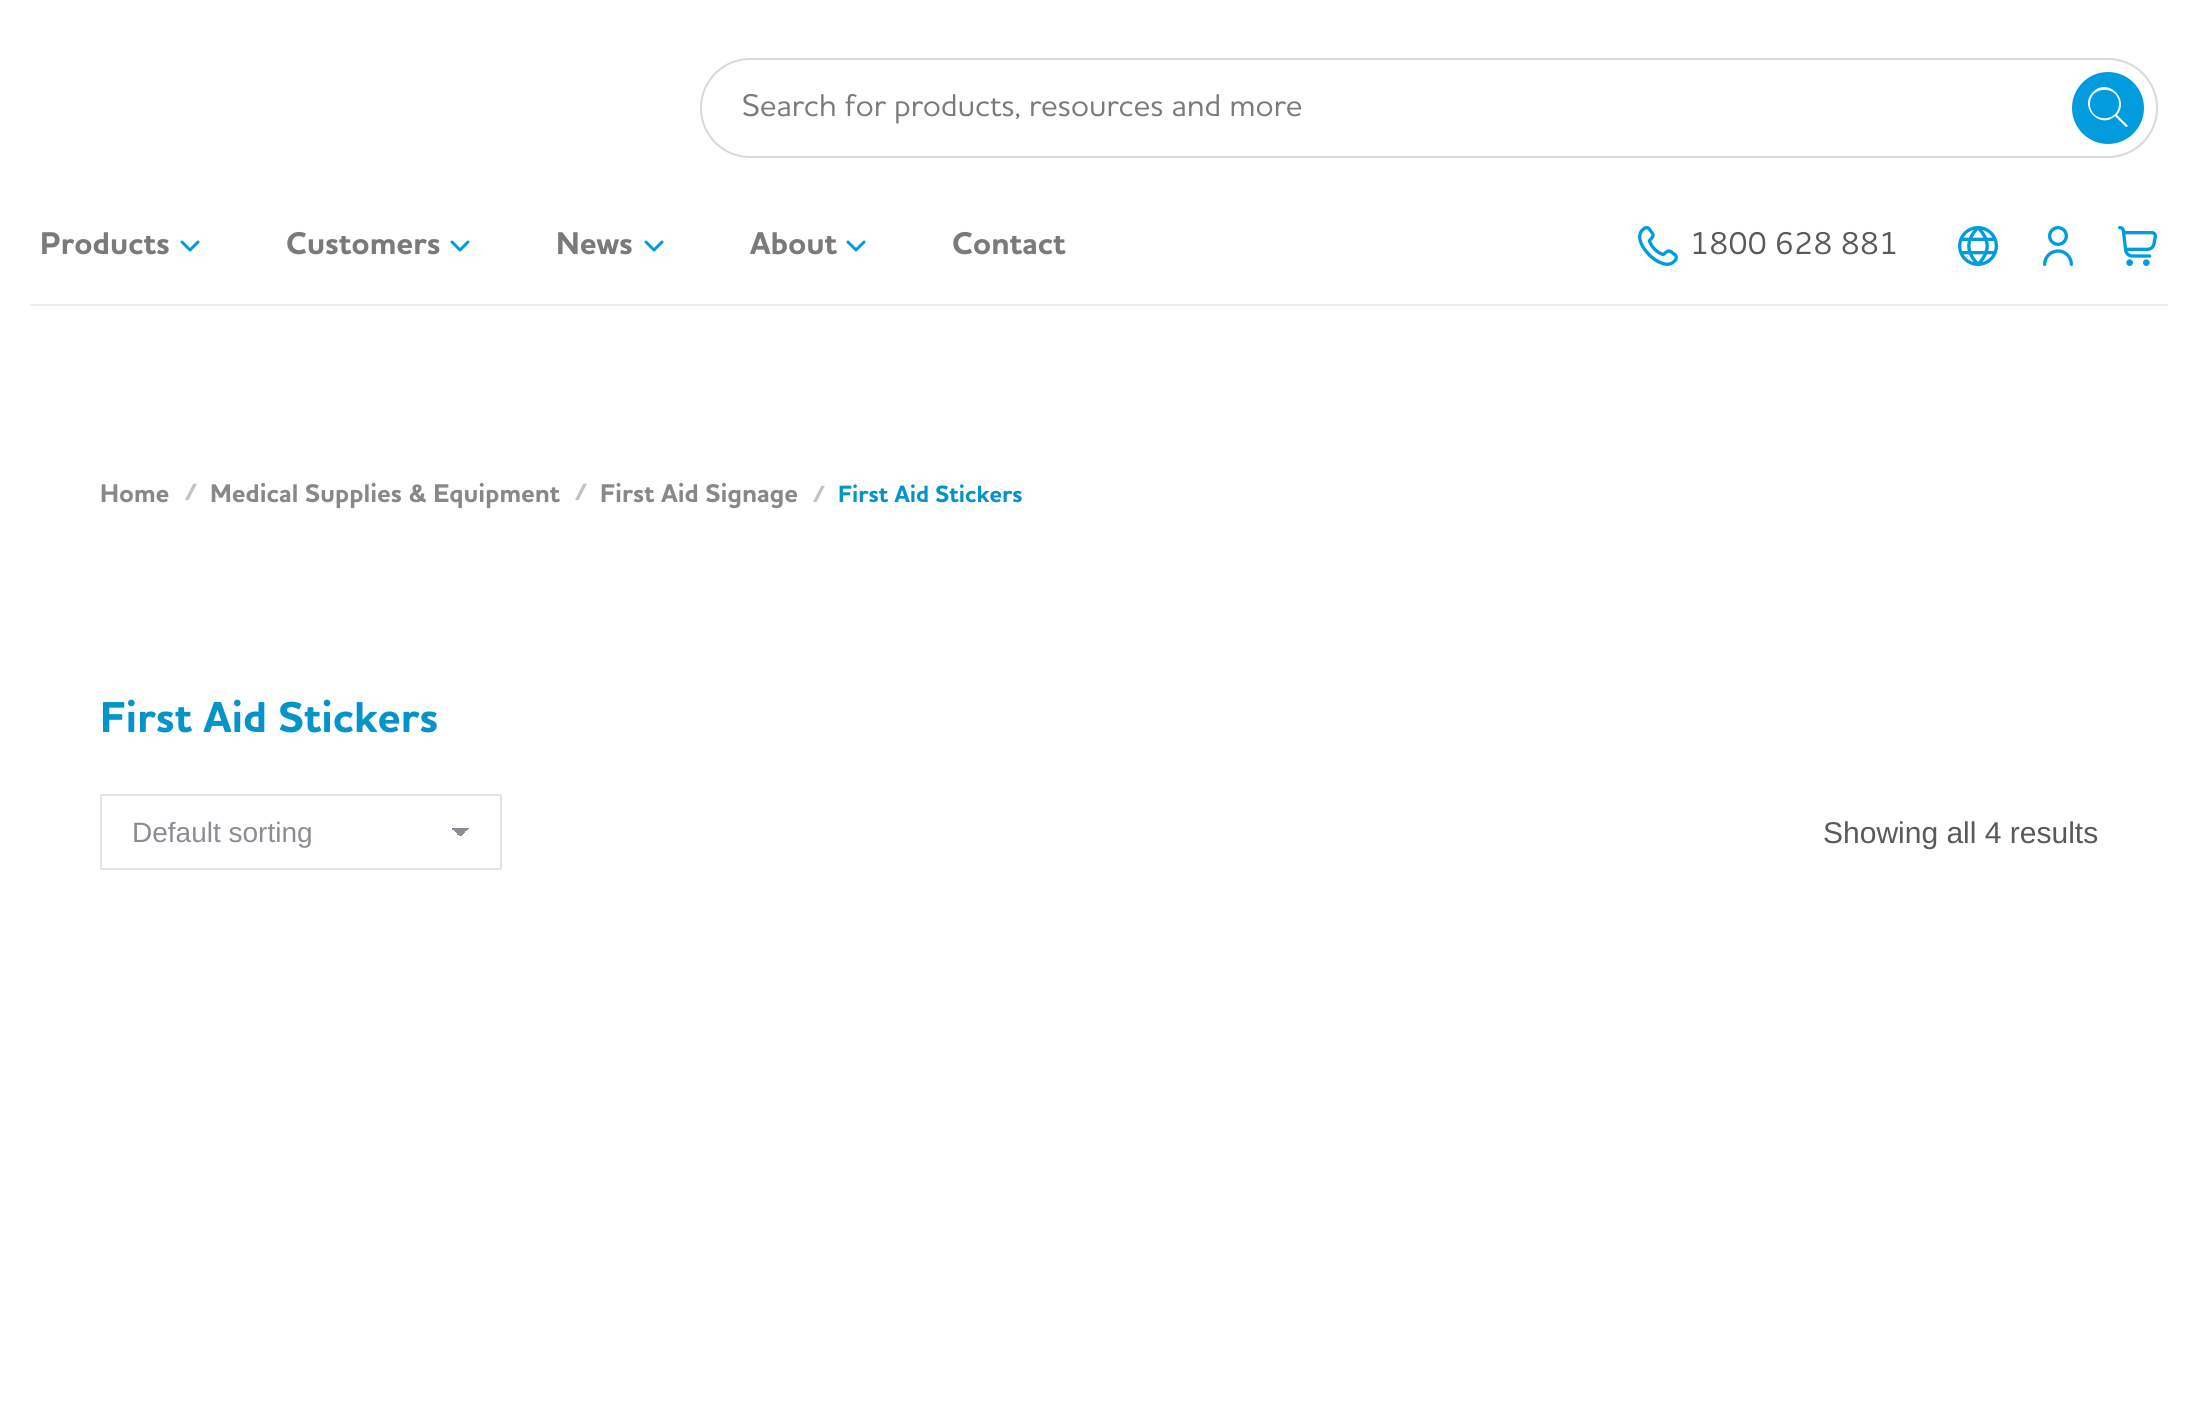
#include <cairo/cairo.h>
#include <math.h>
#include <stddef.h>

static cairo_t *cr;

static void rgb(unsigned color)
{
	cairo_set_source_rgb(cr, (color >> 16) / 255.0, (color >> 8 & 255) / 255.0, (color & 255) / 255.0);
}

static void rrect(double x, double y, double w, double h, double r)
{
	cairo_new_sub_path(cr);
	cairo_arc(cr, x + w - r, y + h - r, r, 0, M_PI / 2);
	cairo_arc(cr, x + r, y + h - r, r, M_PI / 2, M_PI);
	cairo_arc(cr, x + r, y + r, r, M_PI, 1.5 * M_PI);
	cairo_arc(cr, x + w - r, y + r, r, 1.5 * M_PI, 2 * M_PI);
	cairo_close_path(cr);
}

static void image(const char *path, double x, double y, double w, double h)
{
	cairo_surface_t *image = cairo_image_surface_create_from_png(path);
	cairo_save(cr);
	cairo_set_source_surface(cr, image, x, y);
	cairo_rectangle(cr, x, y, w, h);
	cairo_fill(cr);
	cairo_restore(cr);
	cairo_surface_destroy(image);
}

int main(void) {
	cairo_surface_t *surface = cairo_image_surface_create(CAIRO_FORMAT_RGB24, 2198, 1424);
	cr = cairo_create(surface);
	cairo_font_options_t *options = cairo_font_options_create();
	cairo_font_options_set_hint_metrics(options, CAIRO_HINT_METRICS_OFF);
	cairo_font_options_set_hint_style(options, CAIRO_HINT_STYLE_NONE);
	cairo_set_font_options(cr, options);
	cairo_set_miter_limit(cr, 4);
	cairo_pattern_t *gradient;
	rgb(0xffffff);
	cairo_paint(cr);
	rgb(0xeeeeee);
	cairo_rectangle(cr, 30, 304, 2138, 2);
	cairo_fill(cr);
	rrect(701, 59, 1456, 98, 49);
	rgb(0xd9d9d9);
	cairo_stroke(cr);
	image("img/1.png", 743, 93, 559, 31);
	rgb(0x009cde);
	cairo_arc(cr, 2108, 108, 36, 0, 2 * M_PI);
	cairo_fill(cr);
	rgb(0xffffff);
	cairo_new_path(cr);
	cairo_move_to(cr, 2128, 126);
	cairo_line_to(cr, 2117, 115);
	cairo_curve_to(cr, 2130, 99, 2108, 77, 2093, 92);
	cairo_curve_to(cr, 2078, 107, 2100, 130, 2115, 116);
	cairo_line_to(cr, 2126, 127);
	cairo_close_path(cr);
	cairo_move_to(cr, 2090, 104);
	cairo_curve_to(cr, 2090, 85, 2119, 85, 2119, 104);
	cairo_curve_to(cr, 2119, 123, 2090, 123, 2090, 104);
	cairo_close_path(cr);
	cairo_fill(cr);
	image("img/2.png", 42, 232, 127, 23);
	cairo_new_path(cr);
	cairo_move_to(cr, 182, 242);
	cairo_line_to(cr, 190, 250);
	cairo_line_to(cr, 198, 242);
	rgb(0x009cde);
	cairo_set_line_width(cr, 3);
	cairo_set_line_cap(cr, CAIRO_LINE_CAP_ROUND);
	cairo_set_line_join(cr, CAIRO_LINE_JOIN_ROUND);
	cairo_stroke(cr);
	image("img/3.png", 287, 231, 153, 24);
	cairo_new_path(cr);
	cairo_move_to(cr, 452, 242);
	cairo_line_to(cr, 460, 250);
	cairo_line_to(cr, 468, 242);
	cairo_stroke(cr);
	image("img/4.png", 558, 232, 74, 23);
	cairo_new_path(cr);
	cairo_move_to(cr, 646, 242);
	cairo_line_to(cr, 654, 250);
	cairo_line_to(cr, 662, 242);
	cairo_stroke(cr);
	image("img/5.png", 750, 232, 87, 23);
	cairo_new_path(cr);
	cairo_move_to(cr, 848, 242);
	cairo_line_to(cr, 856, 250);
	cairo_line_to(cr, 864, 242);
	cairo_stroke(cr);
	image("img/6.png", 953, 231, 113, 24);
	image("img/7.png", 1638, 226, 40, 40);
	image("img/8.png", 1693, 231, 203, 24);
	image("img/9.png", 1958, 226, 40, 40);
	image("img/10.png", 2043, 226, 30, 40);
	image("img/11.png", 2118, 226, 39, 40);
	image("img/12.png", 101, 484, 68, 19);
	image("img/13.png", 185, 483, 12, 17);
	image("img/14.png", 211, 482, 349, 27);
	image("img/13.png", 575, 483, 12, 17);
	image("img/15.png", 601, 482, 197, 27);
	image("img/13.png", 813, 485, 12, 17);
	image("img/16.png", 839, 484, 183, 19);
	image("img/17.png", 102, 699, 335, 34);
	gradient = cairo_pattern_create_linear(460, 827, 470, 837);
	cairo_pattern_add_color_stop_rgba(gradient, 0.5, 0.545, 0.553, 0.58, 1);
	cairo_pattern_add_color_stop_rgba(gradient, 0.5, 0.992, 0.992, 0.992, 1);
	cairo_set_source(cr, gradient);
	cairo_pattern_destroy(gradient);
	cairo_rectangle(cr, 460, 828, 9, 8);
	cairo_fill(cr);
	gradient = cairo_pattern_create_linear(450, 837, 460, 827);
	cairo_pattern_add_color_stop_rgba(gradient, 0.5, 0.992, 0.992, 0.992, 1);
	cairo_pattern_add_color_stop_rgba(gradient, 0.5, 0.545, 0.553, 0.58, 1);
	cairo_set_source(cr, gradient);
	cairo_pattern_destroy(gradient);
	cairo_rectangle(cr, 452, 828, 8, 8);
	cairo_fill(cr);
	rrect(101, 795, 400, 74, 1);
	rgb(0xe5e5e5);
	cairo_set_line_width(cr, 2);
	cairo_set_line_cap(cr, CAIRO_LINE_CAP_BUTT);
	cairo_set_line_join(cr, CAIRO_LINE_JOIN_MITER);
	cairo_stroke(cr);
	cairo_select_font_face(cr, "Liberation Sans", CAIRO_FONT_SLANT_NORMAL, CAIRO_FONT_WEIGHT_NORMAL);
	cairo_set_font_size(cr, 28);
	rgb(0x8b8d94);
	cairo_move_to(cr, 132, 842);
	cairo_show_text(cr, "Default sorting");
	cairo_set_font_size(cr, 30);
	rgb(0x58595b);
	cairo_move_to(cr, 1823, 843);
	cairo_show_text(cr, "Showing all 4 results");
	cairo_surface_write_to_png(surface, "page.png");
	cairo_font_options_destroy(options);
	cairo_destroy(cr);
	cairo_surface_destroy(surface);
	return 0;
}
